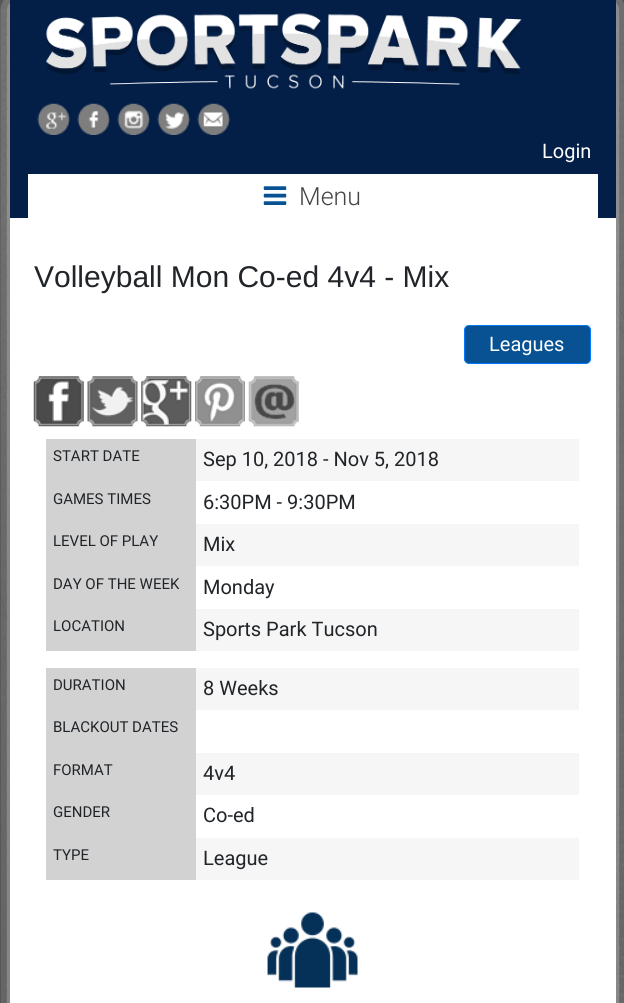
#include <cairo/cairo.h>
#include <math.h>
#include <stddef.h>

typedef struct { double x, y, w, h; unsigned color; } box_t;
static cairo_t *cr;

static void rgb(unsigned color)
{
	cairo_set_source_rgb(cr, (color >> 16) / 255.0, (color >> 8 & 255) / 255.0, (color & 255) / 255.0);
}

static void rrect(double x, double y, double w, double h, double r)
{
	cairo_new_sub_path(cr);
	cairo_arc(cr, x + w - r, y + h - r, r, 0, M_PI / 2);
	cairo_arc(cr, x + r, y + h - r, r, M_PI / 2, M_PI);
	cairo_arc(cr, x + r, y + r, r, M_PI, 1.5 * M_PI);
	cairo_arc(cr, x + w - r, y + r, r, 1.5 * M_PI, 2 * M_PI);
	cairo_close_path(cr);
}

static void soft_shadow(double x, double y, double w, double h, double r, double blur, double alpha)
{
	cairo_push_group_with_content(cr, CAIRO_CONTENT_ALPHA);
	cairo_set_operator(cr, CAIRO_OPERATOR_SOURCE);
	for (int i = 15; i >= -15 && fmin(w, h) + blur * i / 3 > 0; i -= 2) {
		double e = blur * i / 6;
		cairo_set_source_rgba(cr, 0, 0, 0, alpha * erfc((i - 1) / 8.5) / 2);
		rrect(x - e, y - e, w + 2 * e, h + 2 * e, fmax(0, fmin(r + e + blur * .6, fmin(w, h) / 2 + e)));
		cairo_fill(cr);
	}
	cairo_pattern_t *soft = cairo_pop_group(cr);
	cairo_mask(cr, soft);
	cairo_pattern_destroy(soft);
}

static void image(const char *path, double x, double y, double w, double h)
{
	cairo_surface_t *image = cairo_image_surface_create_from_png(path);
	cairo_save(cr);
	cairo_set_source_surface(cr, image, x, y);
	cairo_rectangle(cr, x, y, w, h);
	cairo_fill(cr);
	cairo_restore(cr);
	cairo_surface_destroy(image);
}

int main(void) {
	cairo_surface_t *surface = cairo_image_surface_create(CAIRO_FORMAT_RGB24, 624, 1003);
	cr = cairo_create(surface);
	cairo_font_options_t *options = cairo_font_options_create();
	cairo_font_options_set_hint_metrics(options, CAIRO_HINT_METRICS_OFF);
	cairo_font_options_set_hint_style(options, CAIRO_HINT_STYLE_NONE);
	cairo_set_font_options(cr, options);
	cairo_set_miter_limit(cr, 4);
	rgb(0xffffff);
	cairo_paint(cr);
	image("img/1.png", 0, 0, 624, 1003);
	soft_shadow(10, 0, 606, 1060, 0, 19, 1);
	rgb(0xffffff);
	cairo_rectangle(cr, 10, 218, 606, 785);
	cairo_fill(cr);
	rgb(0x031f48);
	cairo_rectangle(cr, 10, 0, 606, 218);
	cairo_fill(cr);
	image("img/2.png", 46, 13, 476, 76);
	image("img/3.png", 37, 103, 33, 32);
	image("img/4.png", 77, 103, 33, 32);
	image("img/5.png", 117, 103, 33, 32);
	image("img/6.png", 157, 103, 33, 32);
	image("img/7.png", 197, 103, 33, 32);
	rgb(0xffffff);
	cairo_rectangle(cr, 28, 174, 570, 44);
	cairo_fill(cr);
	image("img/8.png", 263, 186, 24, 19);
	rgb(0x085293);
	rrect(464.5, 325.5, 126, 38, 4.5);
	cairo_fill_preserve(cr);
	rgb(0x007bff);
	cairo_set_line_width(cr, 1);
	cairo_stroke(cr);
	image("img/9.png", 33, 376, 51, 51);
	image("img/10.png", 87, 376, 51, 51);
	image("img/11.png", 141, 376, 51, 51);
	image("img/12.png", 195, 376, 50, 51);
	image("img/13.png", 248, 376, 51, 51);
	{
		static const box_t items[] = {
			{196, 439, 383, 42, 0xf6f6f6},
			{46, 439, 150, 212, 0xd2d2d2},
			{196, 524, 383, 42, 0xf6f6f6},
			{196, 609, 383, 42, 0xf6f6f6},
			{196, 668, 383, 42, 0xf6f6f6},
			{46, 668, 150, 212, 0xd2d2d2},
			{196, 753, 383, 42, 0xf6f6f6},
			{196, 838, 383, 42, 0xf6f6f6},
		};
		for (size_t i = 0; i < sizeof items / sizeof *items; i++) {
			rgb(items[i].color);
			cairo_rectangle(cr, items[i].x, items[i].y, items[i].w, items[i].h);
			cairo_fill(cr);
		}
	}
	image("img/14.png", 267, 912, 91, 76);
	cairo_select_font_face(cr, "Roboto", CAIRO_FONT_SLANT_NORMAL, CAIRO_FONT_WEIGHT_NORMAL);
	cairo_set_font_size(cr, 20);
	rgb(0xffffff);
	cairo_move_to(cr, 542, 158);
	cairo_show_text(cr, "Login");
	cairo_select_font_face(cr, "Roboto Light", CAIRO_FONT_SLANT_NORMAL, CAIRO_FONT_WEIGHT_NORMAL);
	cairo_set_font_size(cr, 25);
	rgb(0x444444);
	cairo_move_to(cr, 299, 205);
	cairo_show_text(cr, "Menu");
	cairo_select_font_face(cr, "Liberation Sans", CAIRO_FONT_SLANT_NORMAL, CAIRO_FONT_WEIGHT_NORMAL);
	cairo_set_font_size(cr, 30);
	rgb(0x212529);
	cairo_move_to(cr, 34, 287);
	cairo_show_text(cr, "Volleyball Mon Co-ed 4v4 - Mix");
	cairo_select_font_face(cr, "Roboto", CAIRO_FONT_SLANT_NORMAL, CAIRO_FONT_WEIGHT_NORMAL);
	cairo_set_font_size(cr, 20);
	rgb(0xffffff);
	cairo_move_to(cr, 489, 351);
	cairo_show_text(cr, "Leagues");
	cairo_set_font_size(cr, 15);
	rgb(0x212529);
	cairo_move_to(cr, 53, 461);
	cairo_show_text(cr, "START DATE");
	cairo_set_font_size(cr, 20);
	cairo_move_to(cr, 203, 466);
	cairo_show_text(cr, "Sep 10, 2018 - Nov 5, 2018");
	cairo_set_font_size(cr, 15);
	cairo_move_to(cr, 53, 504);
	cairo_show_text(cr, "GAMES TIMES");
	cairo_set_font_size(cr, 20);
	cairo_move_to(cr, 203, 509);
	cairo_show_text(cr, "6:30PM - 9:30PM");
	cairo_set_font_size(cr, 15);
	cairo_move_to(cr, 53, 546);
	cairo_show_text(cr, "LEVEL OF PLAY");
	cairo_set_font_size(cr, 20);
	cairo_move_to(cr, 203, 551);
	cairo_show_text(cr, "Mix");
	cairo_set_font_size(cr, 15);
	cairo_move_to(cr, 53, 589);
	cairo_show_text(cr, "DAY OF THE WEEK");
	cairo_set_font_size(cr, 20);
	cairo_move_to(cr, 203, 594);
	cairo_show_text(cr, "Monday");
	cairo_set_font_size(cr, 15);
	cairo_move_to(cr, 53, 631);
	cairo_show_text(cr, "LOCATION");
	cairo_set_font_size(cr, 20);
	cairo_move_to(cr, 203, 636);
	cairo_show_text(cr, "Sports Park Tucson");
	cairo_set_font_size(cr, 15);
	cairo_move_to(cr, 53, 690);
	cairo_show_text(cr, "DURATION");
	cairo_set_font_size(cr, 20);
	cairo_move_to(cr, 203, 695);
	cairo_show_text(cr, "8 Weeks");
	cairo_set_font_size(cr, 15);
	cairo_move_to(cr, 53, 732);
	cairo_show_text(cr, "BLACKOUT DATES");
	cairo_move_to(cr, 53, 775);
	cairo_show_text(cr, "FORMAT");
	cairo_set_font_size(cr, 20);
	cairo_move_to(cr, 203, 780);
	cairo_show_text(cr, "4v4");
	cairo_set_font_size(cr, 15);
	cairo_move_to(cr, 53, 817);
	cairo_show_text(cr, "GENDER");
	cairo_set_font_size(cr, 20);
	cairo_move_to(cr, 203, 822);
	cairo_show_text(cr, "Co-ed");
	cairo_set_font_size(cr, 15);
	cairo_move_to(cr, 53, 860);
	cairo_show_text(cr, "TYPE");
	cairo_set_font_size(cr, 20);
	cairo_move_to(cr, 203, 865);
	cairo_show_text(cr, "League");
	cairo_surface_write_to_png(surface, "page.png");
	cairo_font_options_destroy(options);
	cairo_destroy(cr);
	cairo_surface_destroy(surface);
	return 0;
}
